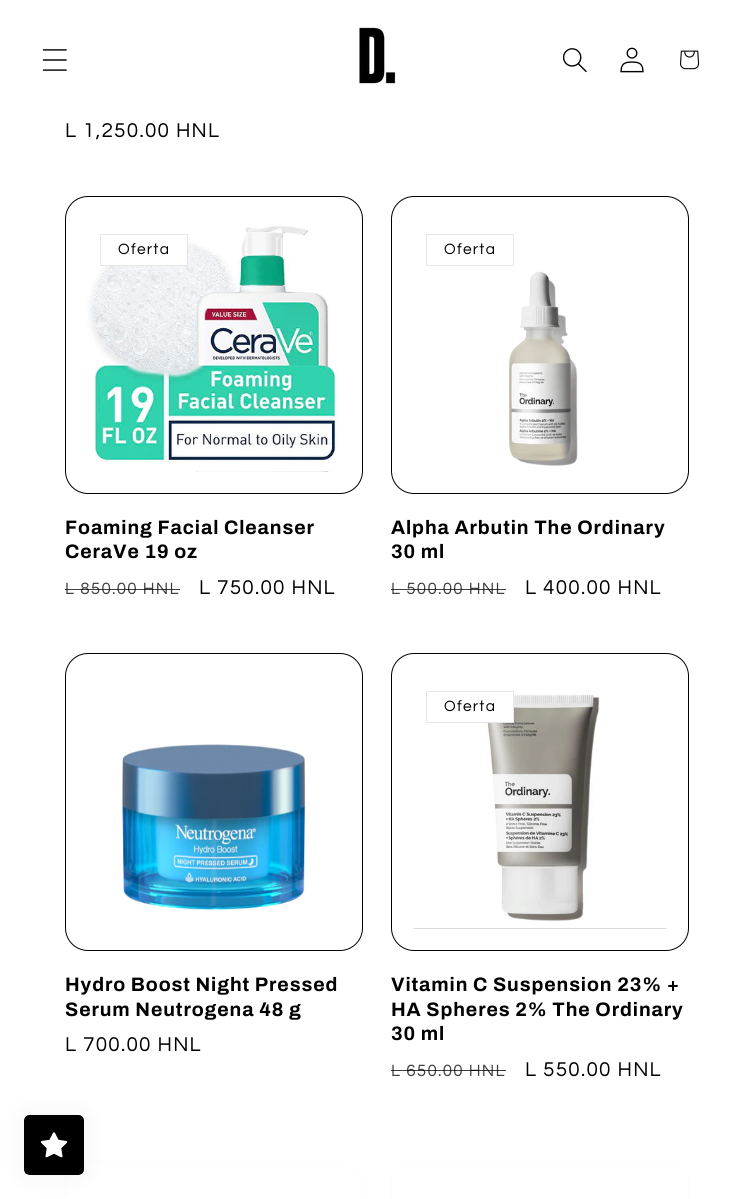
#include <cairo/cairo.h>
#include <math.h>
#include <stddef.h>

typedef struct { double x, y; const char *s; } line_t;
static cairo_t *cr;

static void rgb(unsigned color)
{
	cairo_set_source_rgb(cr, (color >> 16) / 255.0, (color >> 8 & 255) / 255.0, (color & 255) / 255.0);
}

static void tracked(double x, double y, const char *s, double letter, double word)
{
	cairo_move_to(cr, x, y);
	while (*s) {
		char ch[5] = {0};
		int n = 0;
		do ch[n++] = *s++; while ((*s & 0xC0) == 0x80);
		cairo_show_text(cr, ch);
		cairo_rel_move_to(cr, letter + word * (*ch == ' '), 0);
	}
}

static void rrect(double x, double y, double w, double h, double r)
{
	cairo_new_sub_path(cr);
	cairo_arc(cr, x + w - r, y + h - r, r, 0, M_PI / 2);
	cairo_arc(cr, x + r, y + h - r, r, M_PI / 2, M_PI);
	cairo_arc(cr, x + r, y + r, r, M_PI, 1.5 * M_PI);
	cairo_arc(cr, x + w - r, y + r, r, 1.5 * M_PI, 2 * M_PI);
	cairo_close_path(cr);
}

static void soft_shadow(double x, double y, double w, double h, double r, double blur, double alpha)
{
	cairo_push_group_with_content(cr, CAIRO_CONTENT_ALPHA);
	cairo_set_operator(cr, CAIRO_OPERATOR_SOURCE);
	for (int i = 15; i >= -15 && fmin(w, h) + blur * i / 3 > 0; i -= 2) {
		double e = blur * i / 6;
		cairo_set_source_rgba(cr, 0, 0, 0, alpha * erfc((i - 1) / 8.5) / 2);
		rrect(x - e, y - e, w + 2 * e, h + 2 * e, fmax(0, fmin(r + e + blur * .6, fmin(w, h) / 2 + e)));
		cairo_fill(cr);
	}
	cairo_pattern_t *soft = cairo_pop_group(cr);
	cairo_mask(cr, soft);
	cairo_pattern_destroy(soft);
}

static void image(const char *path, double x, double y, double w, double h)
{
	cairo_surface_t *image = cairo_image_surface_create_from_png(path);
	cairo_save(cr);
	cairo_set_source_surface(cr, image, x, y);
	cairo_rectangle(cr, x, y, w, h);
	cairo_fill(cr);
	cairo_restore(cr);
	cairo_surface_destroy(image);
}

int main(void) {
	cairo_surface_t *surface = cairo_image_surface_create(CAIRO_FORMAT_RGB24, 754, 1199);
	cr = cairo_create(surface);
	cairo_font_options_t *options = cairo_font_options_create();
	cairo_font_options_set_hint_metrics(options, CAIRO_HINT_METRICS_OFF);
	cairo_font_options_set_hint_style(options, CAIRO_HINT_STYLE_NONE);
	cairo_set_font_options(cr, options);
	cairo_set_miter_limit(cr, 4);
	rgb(0xffffff);
	cairo_paint(cr);
	image("img/1.png", 42, 49, 25, 22);
	image("img/2.png", 359, 26, 37, 60);
	image("img/3.png", 562, 48, 25, 25);
	image("img/4.png", 620, 47, 24, 26);
	image("img/5.png", 680, 50, 20, 20);
	rrect(65.5, 196.5, 297, 297, 22.5);
	rgb(0x000000);
	cairo_set_line_width(cr, 1);
	cairo_stroke(cr);
	image("img/6.png", 87, 226, 251, 246);
	rgb(0xffffff);
	cairo_rectangle(cr, 105, 235, 82, 30);
	cairo_fill(cr);
	cairo_rectangle(cr, 100.5, 234.5, 87, 31);
	rgb(0xe6e6e6);
	cairo_stroke(cr);
	rrect(391.5, 196.5, 297, 297, 22.5);
	rgb(0x000000);
	cairo_stroke(cr);
	cairo_rectangle(cr, 426.5, 234.5, 87, 31);
	rgb(0xe6e6e6);
	cairo_stroke(cr);
	image("img/7.png", 509, 271, 69, 195);
	rrect(65.5, 653.5, 297, 297, 22.5);
	rgb(0x000000);
	cairo_stroke(cr);
	image("img/8.png", 121, 744, 186, 167);
	rrect(391.5, 653.5, 297, 297, 22.5);
	cairo_stroke(cr);
	image("img/9.png", 413, 694, 254, 235);
	rgb(0xffffff);
	cairo_rectangle(cr, 482, 694, 31, 28);
	cairo_fill(cr);
	cairo_rectangle(cr, 426.5, 691.5, 87, 31);
	rgb(0xe6e6e6);
	cairo_stroke(cr);
	rrect(65.5, 1161.5, 297, 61, 22.5);
	rgb(0xfcfcfc);
	cairo_stroke(cr);
	rrect(391.5, 1161.5, 297, 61, 22.5);
	cairo_stroke(cr);
	rgb(0x000000);
	soft_shadow(24, 1115, 60, 60, 5, 12.5, 0.05);
	image("img/10.png", 24, 1115, 60, 60);
	cairo_select_font_face(cr, "Questrial", CAIRO_FONT_SLANT_NORMAL, CAIRO_FONT_WEIGHT_NORMAL);
	cairo_set_font_size(cr, 20.75);
	rgb(0x000000);
	tracked(65, 137, "L 1,250.00 HNL", 1.25, 0);
	cairo_set_font_size(cr, 15.5);
	tracked(118, 254, "Oferta", 1.25, 0);
	cairo_select_font_face(cr, "Archivo", CAIRO_FONT_SLANT_NORMAL, CAIRO_FONT_WEIGHT_BOLD);
	cairo_set_font_size(cr, 19.5);
	tracked(65, 534, "Foaming Facial Cleanser", 0.9, 0);
	tracked(65, 558, "CeraVe 19 oz", 0.9, 0);
	cairo_select_font_face(cr, "Questrial", CAIRO_FONT_SLANT_NORMAL, CAIRO_FONT_WEIGHT_NORMAL);
	cairo_set_font_size(cr, 17);
	rgb(0x404040);
	tracked(65, 594, "L 850.00 HNL", 1.25, 0);
	cairo_set_source_rgba(cr, 0, 0, 0, 0.75);
	cairo_rectangle(cr, 65, 589, 115, 1);
	cairo_fill(cr);
	cairo_set_font_size(cr, 20.75);
	rgb(0x000000);
	tracked(199, 594, "L 750.00 HNL", 1.25, 0);
	cairo_set_font_size(cr, 15.5);
	tracked(444, 254, "Oferta", 1.25, 0);
	cairo_select_font_face(cr, "Archivo", CAIRO_FONT_SLANT_NORMAL, CAIRO_FONT_WEIGHT_BOLD);
	cairo_set_font_size(cr, 19.5);
	tracked(391, 534, "Alpha Arbutin The Ordinary", 0.9, 0);
	tracked(391, 558, "30 ml", 0.9, 0);
	cairo_select_font_face(cr, "Questrial", CAIRO_FONT_SLANT_NORMAL, CAIRO_FONT_WEIGHT_NORMAL);
	cairo_set_font_size(cr, 17);
	rgb(0x404040);
	tracked(391, 594, "L 500.00 HNL", 1.25, 0);
	cairo_set_source_rgba(cr, 0, 0, 0, 0.75);
	cairo_rectangle(cr, 391, 589, 115, 1);
	cairo_fill(cr);
	cairo_set_font_size(cr, 20.75);
	rgb(0x000000);
	tracked(525, 594, "L 400.00 HNL", 1.25, 0);
	cairo_select_font_face(cr, "Archivo", CAIRO_FONT_SLANT_NORMAL, CAIRO_FONT_WEIGHT_BOLD);
	cairo_set_font_size(cr, 19.5);
	tracked(65, 991, "Hydro Boost Night Pressed", 0.9, 0);
	tracked(65, 1016, "Serum Neutrogena 48 g", 0.9, 0);
	cairo_select_font_face(cr, "Questrial", CAIRO_FONT_SLANT_NORMAL, CAIRO_FONT_WEIGHT_NORMAL);
	cairo_set_font_size(cr, 20.75);
	tracked(65, 1051, "L 700.00 HNL", 1.25, 0);
	cairo_set_font_size(cr, 15.5);
	tracked(444, 711, "Oferta", 1.25, 0);
	cairo_select_font_face(cr, "Archivo", CAIRO_FONT_SLANT_NORMAL, CAIRO_FONT_WEIGHT_BOLD);
	cairo_set_font_size(cr, 19.5);
	{
		static const line_t items[] = {
			{391, 991, "Vitamin C Suspension 23% +"},
			{391, 1016, "HA Spheres 2% The Ordinary"},
			{391, 1040, "30 ml"},
		};
		for (size_t i = 0; i < sizeof items / sizeof *items; i++) {
			tracked(items[i].x, items[i].y, items[i].s, 0.9, 0);
		}
	}
	cairo_select_font_face(cr, "Questrial", CAIRO_FONT_SLANT_NORMAL, CAIRO_FONT_WEIGHT_NORMAL);
	cairo_set_font_size(cr, 17);
	rgb(0x404040);
	tracked(391, 1076, "L 650.00 HNL", 1.25, 0);
	cairo_set_source_rgba(cr, 0, 0, 0, 0.75);
	cairo_rectangle(cr, 391, 1070, 115, 1);
	cairo_fill(cr);
	cairo_set_font_size(cr, 20.75);
	rgb(0x000000);
	tracked(525, 1076, "L 550.00 HNL", 1.25, 0);
	cairo_surface_write_to_png(surface, "page.png");
	cairo_font_options_destroy(options);
	cairo_destroy(cr);
	cairo_surface_destroy(surface);
	return 0;
}
